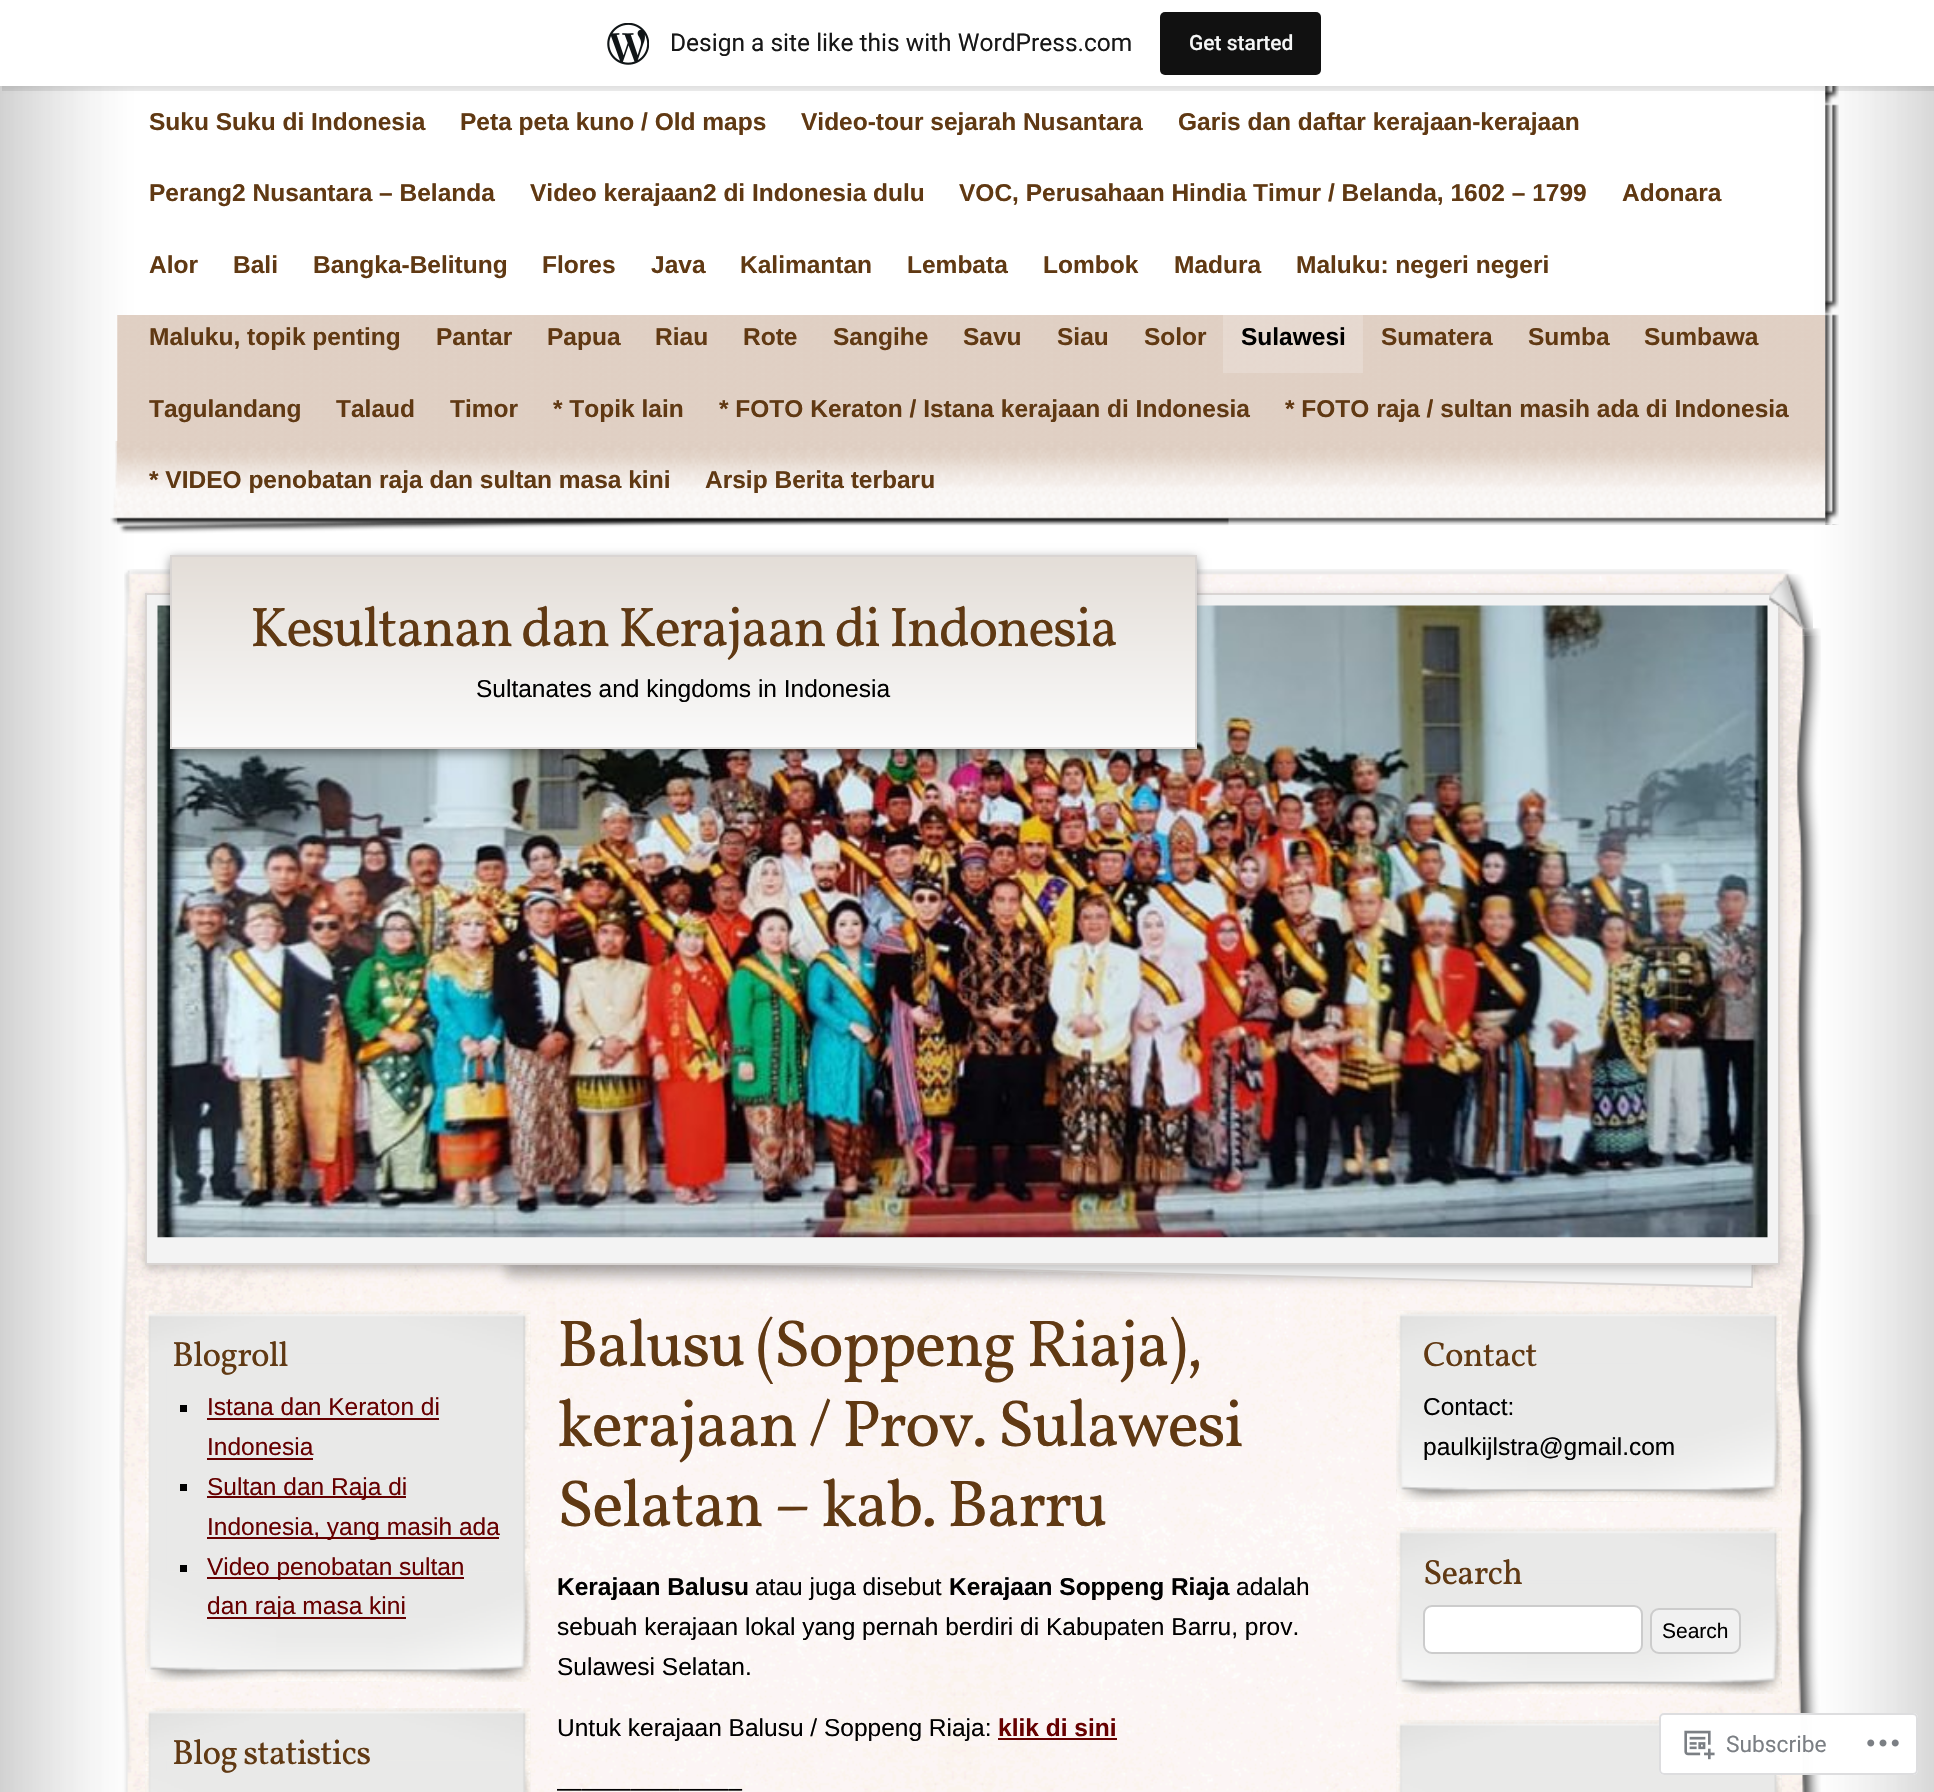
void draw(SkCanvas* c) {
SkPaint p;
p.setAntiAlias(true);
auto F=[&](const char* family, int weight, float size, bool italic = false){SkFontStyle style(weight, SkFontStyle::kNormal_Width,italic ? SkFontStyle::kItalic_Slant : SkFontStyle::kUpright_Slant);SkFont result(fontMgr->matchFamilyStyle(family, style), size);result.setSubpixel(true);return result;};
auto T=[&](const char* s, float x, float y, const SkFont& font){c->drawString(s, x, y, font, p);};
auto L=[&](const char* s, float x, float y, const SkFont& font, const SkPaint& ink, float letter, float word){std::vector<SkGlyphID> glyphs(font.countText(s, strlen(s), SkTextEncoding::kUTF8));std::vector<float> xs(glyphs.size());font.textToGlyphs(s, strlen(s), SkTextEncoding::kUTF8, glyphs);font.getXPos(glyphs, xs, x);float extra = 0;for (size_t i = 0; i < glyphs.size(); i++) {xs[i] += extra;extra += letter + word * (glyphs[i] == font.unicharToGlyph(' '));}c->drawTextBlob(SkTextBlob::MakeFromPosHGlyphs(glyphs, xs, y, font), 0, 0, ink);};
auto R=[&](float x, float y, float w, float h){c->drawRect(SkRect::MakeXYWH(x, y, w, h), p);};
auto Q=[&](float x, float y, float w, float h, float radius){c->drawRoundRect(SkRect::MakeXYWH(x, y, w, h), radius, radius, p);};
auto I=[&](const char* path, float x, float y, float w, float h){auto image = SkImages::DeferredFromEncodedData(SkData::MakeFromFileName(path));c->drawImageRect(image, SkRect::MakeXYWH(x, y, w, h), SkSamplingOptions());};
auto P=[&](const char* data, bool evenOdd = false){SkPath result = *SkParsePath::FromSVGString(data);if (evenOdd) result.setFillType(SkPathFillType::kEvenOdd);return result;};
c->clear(0xffffffff);
I("2.png",0,86,1934,1706);
I("3.png",110,441,1119,93);
I("4.png",117,315,1709,210);
I("5.png",1825,86,14,439);
p.setColor(0x0d000000);
p.setMaskFilter(SkMaskFilter::MakeBlur(kNormal_SkBlurStyle, 2));
c->drawRect(SkRect::MakeXYWH(0,2,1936,86),p);
p.setMaskFilter(nullptr);
p.setColor(0x14000000);
c->drawPath(P("M2 86v5h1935v-86h-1v81z"),p);
p.setColor(0xffffffff);
R(0,0,1934,86);
I("1.png",607,23,42,42);
auto f1 = F("Roboto",400,24.5);
p.setColor(0xff171717);
T("Design a site like this with WordPress.com",670,51,f1);
p.setColor(0xff111111);
Q(1160,12,161,63,5);
auto f2 = F("Roboto",500,21);
p.setColor(0xfff6f7f7);
T("Get started",1189,50,f2);
auto f3 = F("Liberation Sans",700,24.5);
p.setColor(0xff603913);
T("Suku Suku di Indonesia",149,130,f3);
T("Peta peta kuno / Old maps",460,130,f3);
T("Video-tour sejarah Nusantara",801,130,f3);
T("Garis dan daftar kerajaan-kerajaan",1178,130,f3);
T("Perang2 Nusantara – Belanda",149,201,f3);
T("Video kerajaan2 di Indonesia dulu",530,201,f3);
T("VOC, Perusahaan Hindia Timur / Belanda, 1602 – 1799",959,201,f3);
T("Adonara",1622,201,f3);
T("Alor",149,273,f3);
T("Bali",233,273,f3);
T("Bangka-Belitung",313,273,f3);
T("Flores",542,273,f3);
T("Java",651,273,f3);
T("Kalimantan",740,273,f3);
T("Lembata",907,273,f3);
T("Lombok",1043,273,f3);
T("Madura",1174,273,f3);
T("Maluku: negeri negeri",1296,273,f3);
T("Maluku, topik penting",149,345,f3);
T("Pantar",436,345,f3);
T("Papua",547,345,f3);
T("Riau",655,345,f3);
T("Rote",743,345,f3);
T("Sangihe",833,345,f3);
T("Savu",963,345,f3);
T("Siau",1057,345,f3);
T("Solor",1144,345,f3);
p.setColor(0x33ffffff);
R(1223,315,140,58);
p.setColor(0xff000000);
T("Sulawesi",1241,345,f3);
p.setColor(0xff603913);
T("Sumatera",1381,345,f3);
T("Sumba",1528,345,f3);
T("Sumbawa",1644,345,f3);
T("Tagulandang",149,417,f3);
T("Talaud",336,417,f3);
T("Timor",450,417,f3);
T("* Topik lain",553,417,f3);
T("* FOTO Keraton / Istana kerajaan di Indonesia",719,417,f3);
T("* FOTO raja / sultan masih ada di Indonesia",1285,417,f3);
T("* VIDEO penobatan raja dan sultan masa kini",149,488,f3);
T("Arsip Berita terbaru",705,488,f3);
I("9.png",119,635,1702,1157);
I("6.png",124,569,1697,67);
p.setColor(0x33000000);
p.setMaskFilter(SkMaskFilter::MakeBlur(kNormal_SkBlurStyle, 5.5));
c->drawRect(SkRect::MakeXYWH(506,1075,1249,203),p);
p.setMaskFilter(nullptr);
p.setColor(0xfff3f3f3);
c->drawPath(P("M508 1056l1249 29l-4 203l-1249-29z"),p);
p.setStroke(true);
p.setStrokeWidth(1.8);
p.setColor(0xffd9d5d3);
c->drawPath(P("M509 1057.5l1247.5 28l-4.5 201.5l-1247.5-28.5z"),p);
p.setStroke(false);
p.setColor(0x33000000);
p.setMaskFilter(SkMaskFilter::MakeBlur(kNormal_SkBlurStyle, 5));
c->drawRect(SkRect::MakeXYWH(145,597,1635,672),p);
p.setMaskFilter(nullptr);
p.setColor(0xfff3f3f3);
c->drawRect(SkRect::MakeXYWH(146,594,1633,670),p);
p.setStroke(true);
p.setStrokeWidth(2);
p.setColor(0xffd9d5d3);
c->drawRect(SkRect::MakeXYWH(146,594,1633,670),p);
I("7.png",1769,573,44,57);
I("8.png",157,605,1611,633);
p.setStroke(false);
p.setColor(0x66000000);
p.setMaskFilter(SkMaskFilter::MakeBlur(kNormal_SkBlurStyle, 5));
c->drawRect(SkRect::MakeXYWH(170,558,1027,195),p);
p.setMaskFilter(nullptr);
{
const SkColor colors[] = {0xffe3ddd7,0xfffafafa};
const float stops[] = {0,1};
const SkPoint ends[] = {{683,556}, {683,747}};
p.setShader(SkGradientShader::MakeLinear(ends, colors, stops, 2, SkTileMode::kClamp));
p.setAlpha(255);
}
R(172,557,1023,190);
p.setStroke(true);
p.setShader(nullptr);
p.setColor(0xffd9d5d3);
c->drawRect(SkRect::MakeXYWH(171,556,1025,192),p);
auto f4 = F("Vollkorn",400,56);
p.setStroke(false);
p.setColor(0xff603913);
L("Kesultanan dan Kerajaan di Indonesia",250,646,f4,p,-1.75,0);
auto f5 = F("Liberation Sans",400,24.5);
p.setColor(0xff000000);
T("Sultanates and kingdoms in Indonesia",476,697,f5);
p.setColor(0xffe9e9e8);
R(145,1311,385,371);
I("10.png",145,1310,386,372);
auto f6 = F("Vollkorn",400,35);
p.setColor(0xff603913);
L("Blogroll",172,1366,f6,p,-.9,0);
p.setColor(0xff000000);
R(180,1405,7,7);
p.setColor(0xff660000);
T("Istana dan Keraton di",207,1415,f5);
R(207,1418,232,2);
T("Indonesia",207,1455,f5);
R(207,1458,106,2);
p.setColor(0xff000000);
R(180,1484,7,7);
p.setColor(0xff660000);
R(207,1496,199,2);
T("Sultan dan Raja di",207,1495,f5);
R(207,1537,292,2);
T("Indonesia, yang masih ada",207,1535,f5);
p.setColor(0xff000000);
R(180,1565,7,7);
p.setColor(0xff660000);
R(207,1577,257,2);
T("Video penobatan sultan",207,1575,f5);
R(207,1617,199,2);
T("dan raja masa kini",207,1614,f5);
p.setColor(0xffe9e9e8);
R(145,1708,365,84);
I("11.png",145,1708,386,84);
p.setColor(0xff603913);
L("Blog statistics",172,1764,f6,p,-.9,0);
auto f7 = F("Vollkorn",400,66.5);
L("Balusu (Soppeng Riaja),",557,1366,f7,p,-1.75,0);
L("kerajaan / Prov. Sulawesi",557,1446,f7,p,-1.75,0);
L("Selatan – kab. Barru",557,1526,f7,p,-1.75,0);
p.setColor(0xff000000);
T("Kerajaan Balusu",557,1595,f3);
T("atau juga disebut",755,1595,f5);
T("Kerajaan Soppeng Riaja",949,1595,f3);
T("adalah",1236,1595,f5);
T("sebuah kerajaan lokal yang pernah berdiri di Kabupaten Barru, prov.",557,1635,f5);
T("Sulawesi Selatan.",557,1675,f5);
T("Untuk kerajaan Balusu / Soppeng Riaja:",557,1736,f5);
p.setColor(0xff660000);
T("klik di sini",998,1736,f3);
R(998,1738,119,2);
p.setColor(0xff000000);
T("———————–",557,1796,f5);
p.setColor(0xffe9e9e8);
R(1397,1311,385,191);
I("12.png",1396,1310,386,192);
p.setColor(0xff603913);
L("Contact",1423,1366,f6,p,-.9,0);
p.setColor(0xff000000);
T("Contact:",1423,1415,f5);
T("paulkijlstra@gmail.com",1423,1455,f5);
p.setColor(0xffe9e9e8);
R(1417,1528,365,166);
I("13.png",1396,1527,386,167);
p.setColor(0xff603913);
L("Search",1423,1584,f6,p,-.9,0);
p.setColor(0xffffffff);
c->drawRoundRect(SkRect::MakeXYWH(1424,1606,218,47),8,8,p);
p.setStroke(true);
p.setColor(0xffcccccc);
c->drawRoundRect(SkRect::MakeXYWH(1424,1606,218,47),8,8,p);
p.setStroke(false);
p.setColor(0xfff1f1f1);
c->drawRoundRect(SkRect::MakeXYWH(1651,1609,89,44),8,8,p);
p.setStroke(true);
p.setColor(0xffcccccc);
c->drawRoundRect(SkRect::MakeXYWH(1651,1609,89,44),8,8,p);
auto f8 = F("Liberation Sans",400,21);
p.setStroke(false);
p.setColor(0xff000000);
T("Search",1662,1638,f8);
p.setColor(0xffe9e9e8);
R(1397,1720,385,72);
I("14.png",1396,1720,386,72);
p.setColor(0xfaffffff);
Q(1659,1713,259,62,5);
p.setStroke(true);
p.setColor(0xfadcdcde);
c->drawRoundRect(SkRect::MakeXYWH(1660,1714,257,60),4,4,p);
I("15.png",1684,1730,31,30);
auto f9 = F("Roboto",400,22.75);
p.setStroke(false);
p.setColor(0xff7b7f84);
T("Subscribe",1726,1752,f9);
I("16.png",1867,1739,32,8);
}
